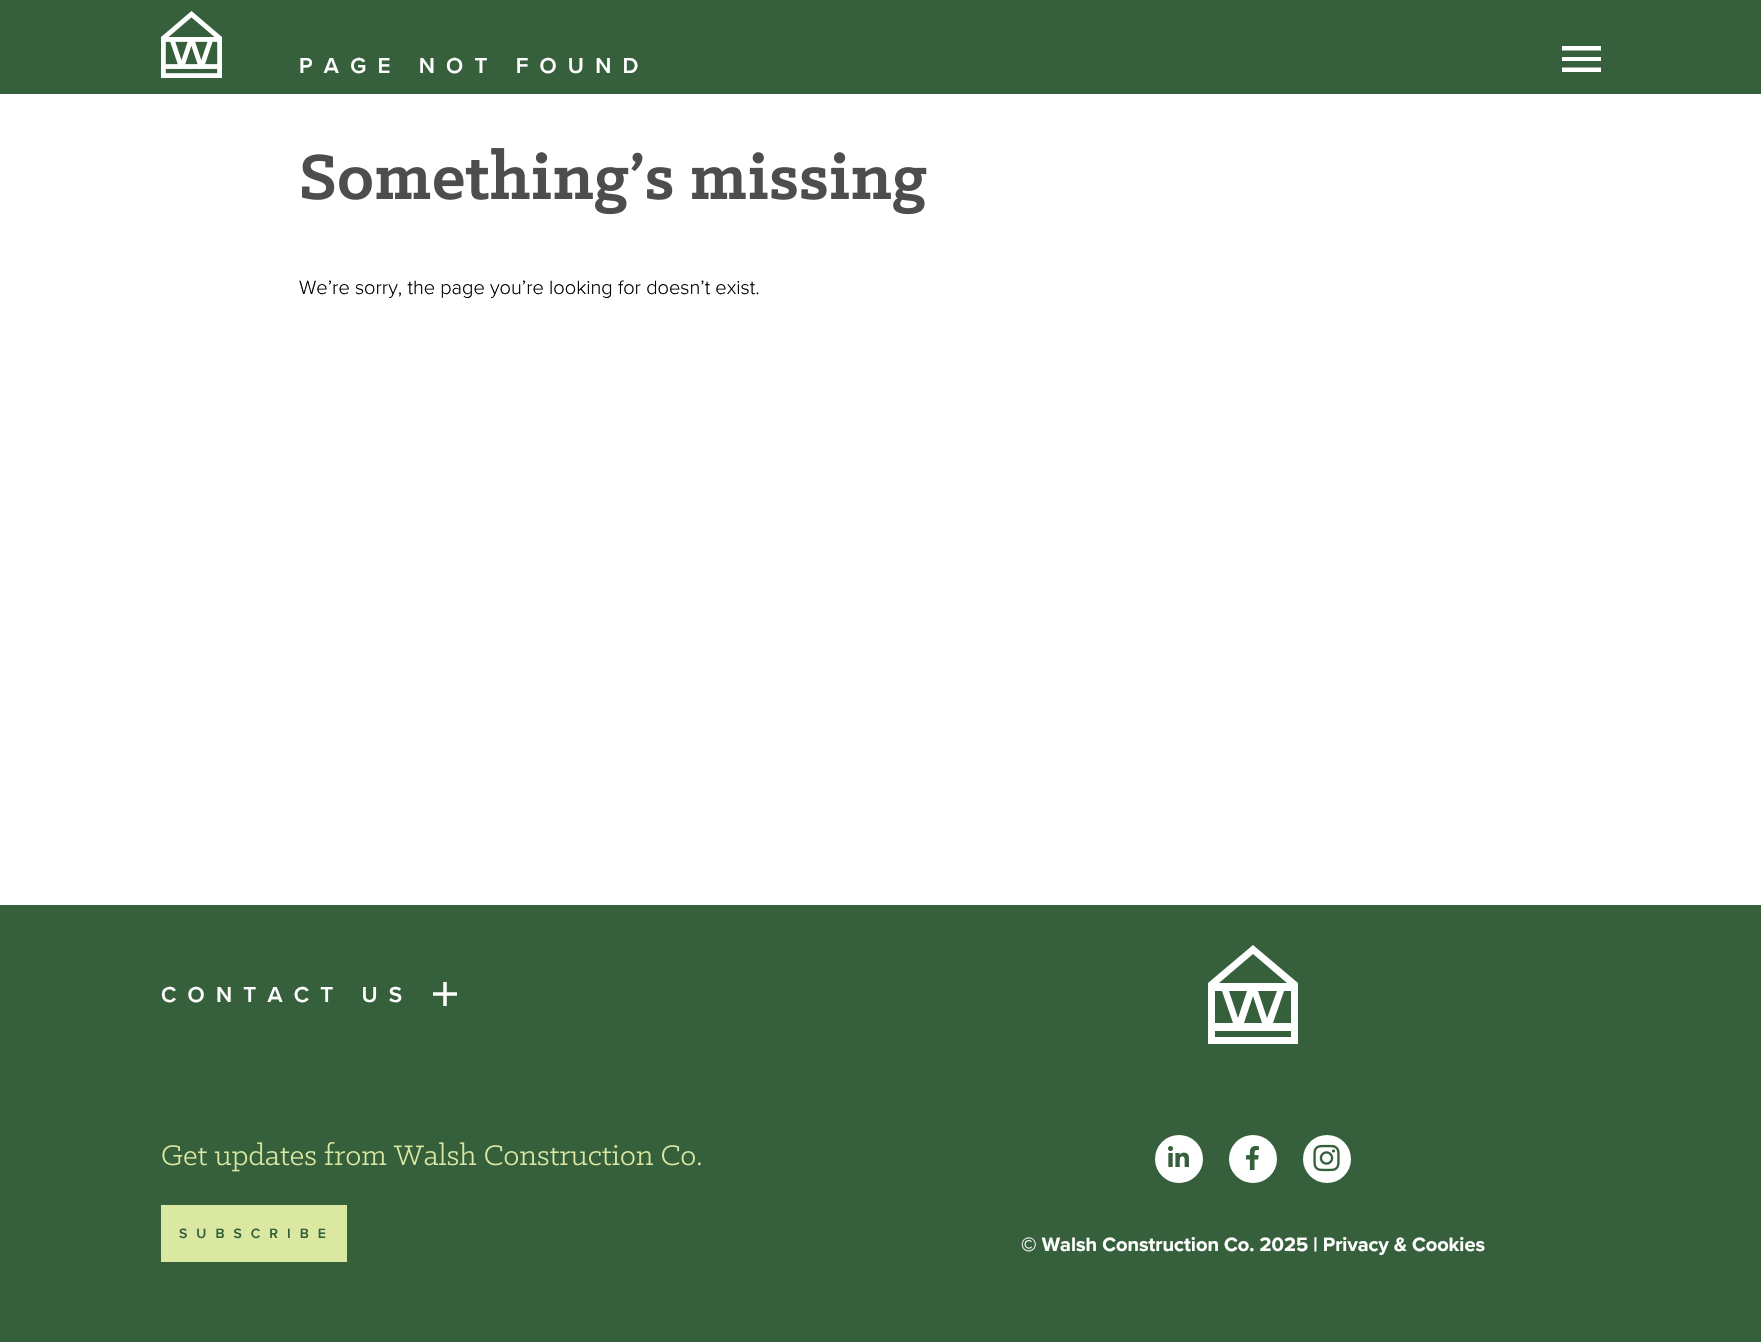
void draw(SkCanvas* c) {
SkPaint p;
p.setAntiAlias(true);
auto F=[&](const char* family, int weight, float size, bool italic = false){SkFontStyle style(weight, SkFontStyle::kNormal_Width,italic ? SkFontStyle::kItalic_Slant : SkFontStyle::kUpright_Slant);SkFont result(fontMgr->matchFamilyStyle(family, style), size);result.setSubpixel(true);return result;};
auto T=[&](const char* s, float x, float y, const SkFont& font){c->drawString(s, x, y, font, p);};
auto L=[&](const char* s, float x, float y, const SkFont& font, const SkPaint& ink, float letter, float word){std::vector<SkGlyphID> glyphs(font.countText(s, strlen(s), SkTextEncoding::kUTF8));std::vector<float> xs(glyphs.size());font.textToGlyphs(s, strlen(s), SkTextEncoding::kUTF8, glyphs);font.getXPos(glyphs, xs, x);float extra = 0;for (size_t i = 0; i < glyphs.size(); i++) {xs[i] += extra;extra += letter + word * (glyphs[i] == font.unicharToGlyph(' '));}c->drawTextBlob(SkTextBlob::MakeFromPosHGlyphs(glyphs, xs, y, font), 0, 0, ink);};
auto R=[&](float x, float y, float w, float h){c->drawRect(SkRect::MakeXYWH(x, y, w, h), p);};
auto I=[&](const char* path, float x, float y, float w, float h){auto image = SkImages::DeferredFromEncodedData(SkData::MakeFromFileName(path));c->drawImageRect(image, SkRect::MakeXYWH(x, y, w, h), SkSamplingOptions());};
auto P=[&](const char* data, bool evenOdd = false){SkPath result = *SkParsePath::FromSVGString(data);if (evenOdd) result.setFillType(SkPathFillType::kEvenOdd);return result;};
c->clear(0xffffffff);
p.setColor(0xff365f3c);
R(0,0,1761,94);
I("1.png",161,11,61,67);
p.setColor(0xffffffff);
c->drawPath(P("M1562 72h39v-4.5h-39zm0-11h39v-4h-39zm0-15v4.5h39v-4.5z",true),p);
auto f1 = F("Proxima Nova",600,22.4);
L("PAGE NOT FOUND",299,73,f1,p,11.25,0);
I("2.png",302,148,625,67);
auto f2 = F("Proxima Nova",300,20);
p.setColor(0xff000000);
T("We’re sorry, the page you’re looking for doesn’t exist.",299,294,f2);
p.setColor(0xff365f3c);
R(0,905,1761,437);
p.setColor(0xffffffff);
L("CONTACT US",161,1002,f1,p,11.25,0);
I("3.png",433,982,24,24);
c->drawPath(P("M1291 1037h-76v-6h76zm-76-14v-32h7l11 32zm14-32h18l-9 27zm15 32l9-27l9 27zm14-32h19l-10 27zm33 0v32h-18l11-32zm-72-8l34-29l34 29zm34-38l-45 38v61h90v-61z"),p);
I("4.png",162,1142,539,30);
p.setColor(0xffdae8a2);
R(161,1205,186,57);
auto f3 = F("Proxima Nova",600,14);
p.setColor(0xff365f3c);
L("SUBSCRIBE",179,1238,f3,p,9,0);
p.setColor(0xffffffff);
c->drawCircle(1179,1159,24,p);
I("5.png",1168,1146,21,21);
c->drawCircle(1253,1159,24,p);
I("6.png",1246,1146,13,24);
c->drawCircle(1327,1159,24,p);
I("7.png",1313,1144,27,28);
auto f4 = F("Proxima Nova",700,20);
T("© Walsh Construction Co. 2025 | Privacy & Cookies",1021,1251,f4);
}
